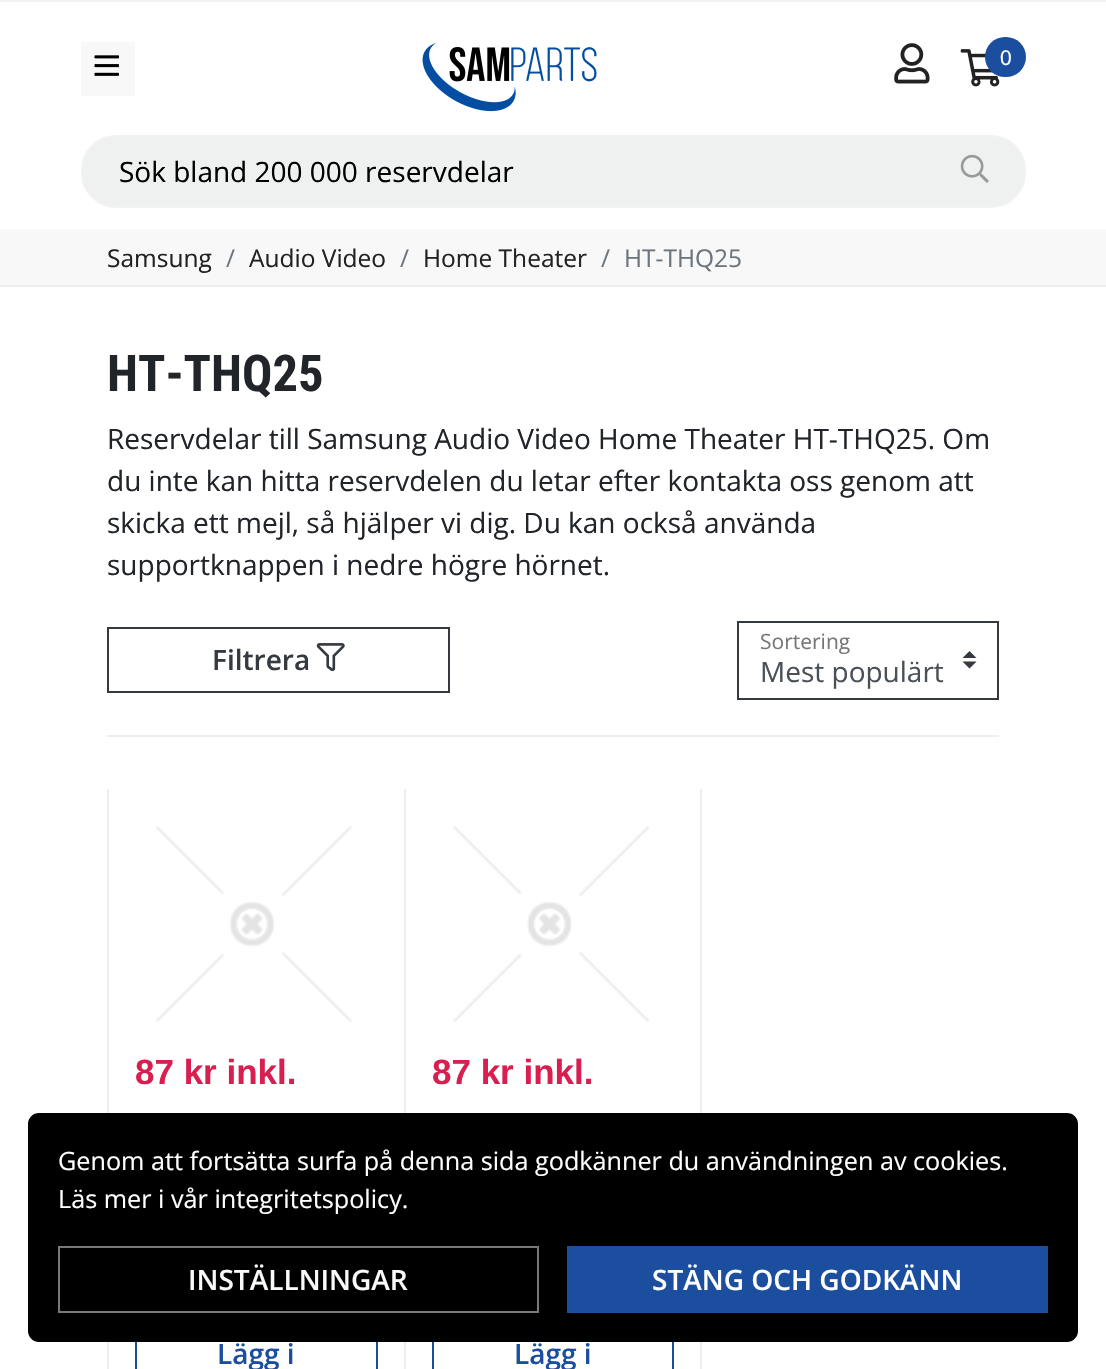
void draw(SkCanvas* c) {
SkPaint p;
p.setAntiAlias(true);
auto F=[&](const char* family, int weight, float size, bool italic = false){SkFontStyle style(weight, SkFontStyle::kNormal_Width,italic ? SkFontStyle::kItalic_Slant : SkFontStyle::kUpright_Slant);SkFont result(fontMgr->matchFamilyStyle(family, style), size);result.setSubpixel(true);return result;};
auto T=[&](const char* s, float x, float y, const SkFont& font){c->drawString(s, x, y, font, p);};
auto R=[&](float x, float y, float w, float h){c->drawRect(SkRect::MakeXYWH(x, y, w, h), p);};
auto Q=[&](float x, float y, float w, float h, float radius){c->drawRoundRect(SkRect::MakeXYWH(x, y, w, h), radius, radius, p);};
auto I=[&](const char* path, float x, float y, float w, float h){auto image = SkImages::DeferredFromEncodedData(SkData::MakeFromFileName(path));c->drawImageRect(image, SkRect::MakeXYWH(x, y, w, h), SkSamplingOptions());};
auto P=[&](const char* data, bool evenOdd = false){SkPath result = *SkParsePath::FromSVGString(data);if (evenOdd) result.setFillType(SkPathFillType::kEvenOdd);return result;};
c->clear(0xffffffff);
p.setColor(0xffeff0f0);
R(0,0,1106,2);
p.setColor(0xfff8f8f8);
R(81,42,54,54);
I("1.png",94,55,25,21);
I("2.png",422,43,175,69);
I("3.png",894,43,36,41);
I("4.png",960,49,40,38);
p.setColor(0xff1b4e9e);
Q(985,37,41,40,20);
auto f1 = F("Liberation Sans",400,21);
p.setColor(0xffffffff);
T("0",1000,65,f1);
p.setColor(0xffeff0f0);
c->drawRoundRect(SkRect::MakeXYWH(82,136,943,71),34,34,p);
p.setStroke(true);
p.setStrokeWidth(2);
p.setColor(0xfff2f2f2);
c->drawRoundRect(SkRect::MakeXYWH(82,136,943,71),34,34,p);
auto f2 = F("Open Sans",400,28);
p.setStroke(false);
p.setColor(0xff000000);
T("Sök bland 200 000 reservdelar",119,182,f2);
I("5.png",960,154,29,29);
p.setColor(0xfff8f8f8);
R(0,229,1106,56);
p.setColor(0xffeeeeee);
R(0,285,1106,2);
auto f3 = F("Open Sans",400,24.5);
p.setColor(0xff222222);
T("Samsung",107,267,f3);
p.setColor(0xff6c757d);
T("/",226,267,f3);
p.setColor(0xff222222);
T("Audio Video",249,267,f3);
p.setColor(0xff6c757d);
T("/",400,267,f3);
p.setColor(0xff222222);
T("Home Theater",423,267,f3);
p.setColor(0xff6c757d);
T("/",601,267,f3);
T("HT-THQ25",624,267,f3);
auto f4 = F("Roboto Condensed",700,50.5);
p.setColor(0xff212529);
T("HT-THQ25",107,391,f4);
T("Reservdelar till Samsung Audio Video Home Theater HT-THQ25. Om",107,449,f2);
T("du inte kan hitta reservdelen du letar efter kontakta oss genom att",107,491,f2);
T("skicka ett mejl, så hjälper vi dig. Du kan också använda",107,533,f2);
T("supportknappen i nedre högre hörnet.",107,575,f2);
p.setColor(0xffeeeeee);
R(107,735,892,2);
p.setStroke(true);
p.setColor(0xff343a40);
c->drawRect(SkRect::MakeXYWH(108,628,341,64),p);
auto f5 = F("Open Sans",600,28);
p.setStroke(false);
T("Filtrera",212,670,f5);
I("6.png",316,643,29,29);
c->drawPath(P("M969.5 651l-7 7h14zm0 17.5l-7-7h14z"),p);
p.setStroke(true);
c->drawRect(SkRect::MakeXYWH(738,622,260,77),p);
auto f6 = F("Open Sans",400,21);
p.setStroke(false);
p.setColor(0xff777777);
T("Sortering",760,649,f6);
p.setColor(0xff495057);
T("Mest populärt",760,682,f2);
p.setColor(0xffeeeeee);
R(107,789,2,580);
R(404,789,2,580);
I("7.png",156,826,196,196);
auto f7 = F("Liberation Sans",700,35);
p.setColor(0xffd91f50);
T("87 kr inkl.",135,1084,f7);
p.setStroke(true);
p.setColor(0xff1b4e9e);
c->drawRect(SkRect::MakeXYWH(136,1321,241,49),p);
p.setStroke(false);
T("Lägg i",217,1364,f5);
p.setColor(0xffeeeeee);
R(700,789,2,580);
I("8.png",453,826,197,196);
p.setColor(0xffd91f50);
T("87 kr inkl.",432,1084,f7);
p.setStroke(true);
p.setColor(0xff1b4e9e);
c->drawRect(SkRect::MakeXYWH(433,1321,240,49),p);
p.setStroke(false);
T("Lägg i",514,1364,f5);
p.setColor(0xff000000);
c->drawRoundRect(SkRect::MakeXYWH(29,1114,1048,227),10,10,p);
p.setStroke(true);
c->drawRoundRect(SkRect::MakeXYWH(29,1114,1048,227),10,10,p);
auto f8 = F("Open Sans",400,25.2);
p.setStroke(false);
p.setColor(0xffffffff);
T("Genom att fortsätta surfa på denna sida godkänner du användningen av cookies.",58,1170,f8);
T("Läs mer i vår integritetspolicy.",58,1208,f8);
p.setStroke(true);
p.setColor(0xff787878);
c->drawRect(SkRect::MakeXYWH(59,1247,479,65),p);
p.setStroke(false);
p.setColor(0xfff8f9fa);
T("INSTÄLLNINGAR",188,1290,f5);
p.setColor(0xff1b4e9e);
R(567,1246,481,67);
p.setColor(0xffffffff);
T("STÄNG OCH GODKÄNN",652,1290,f5);
}
